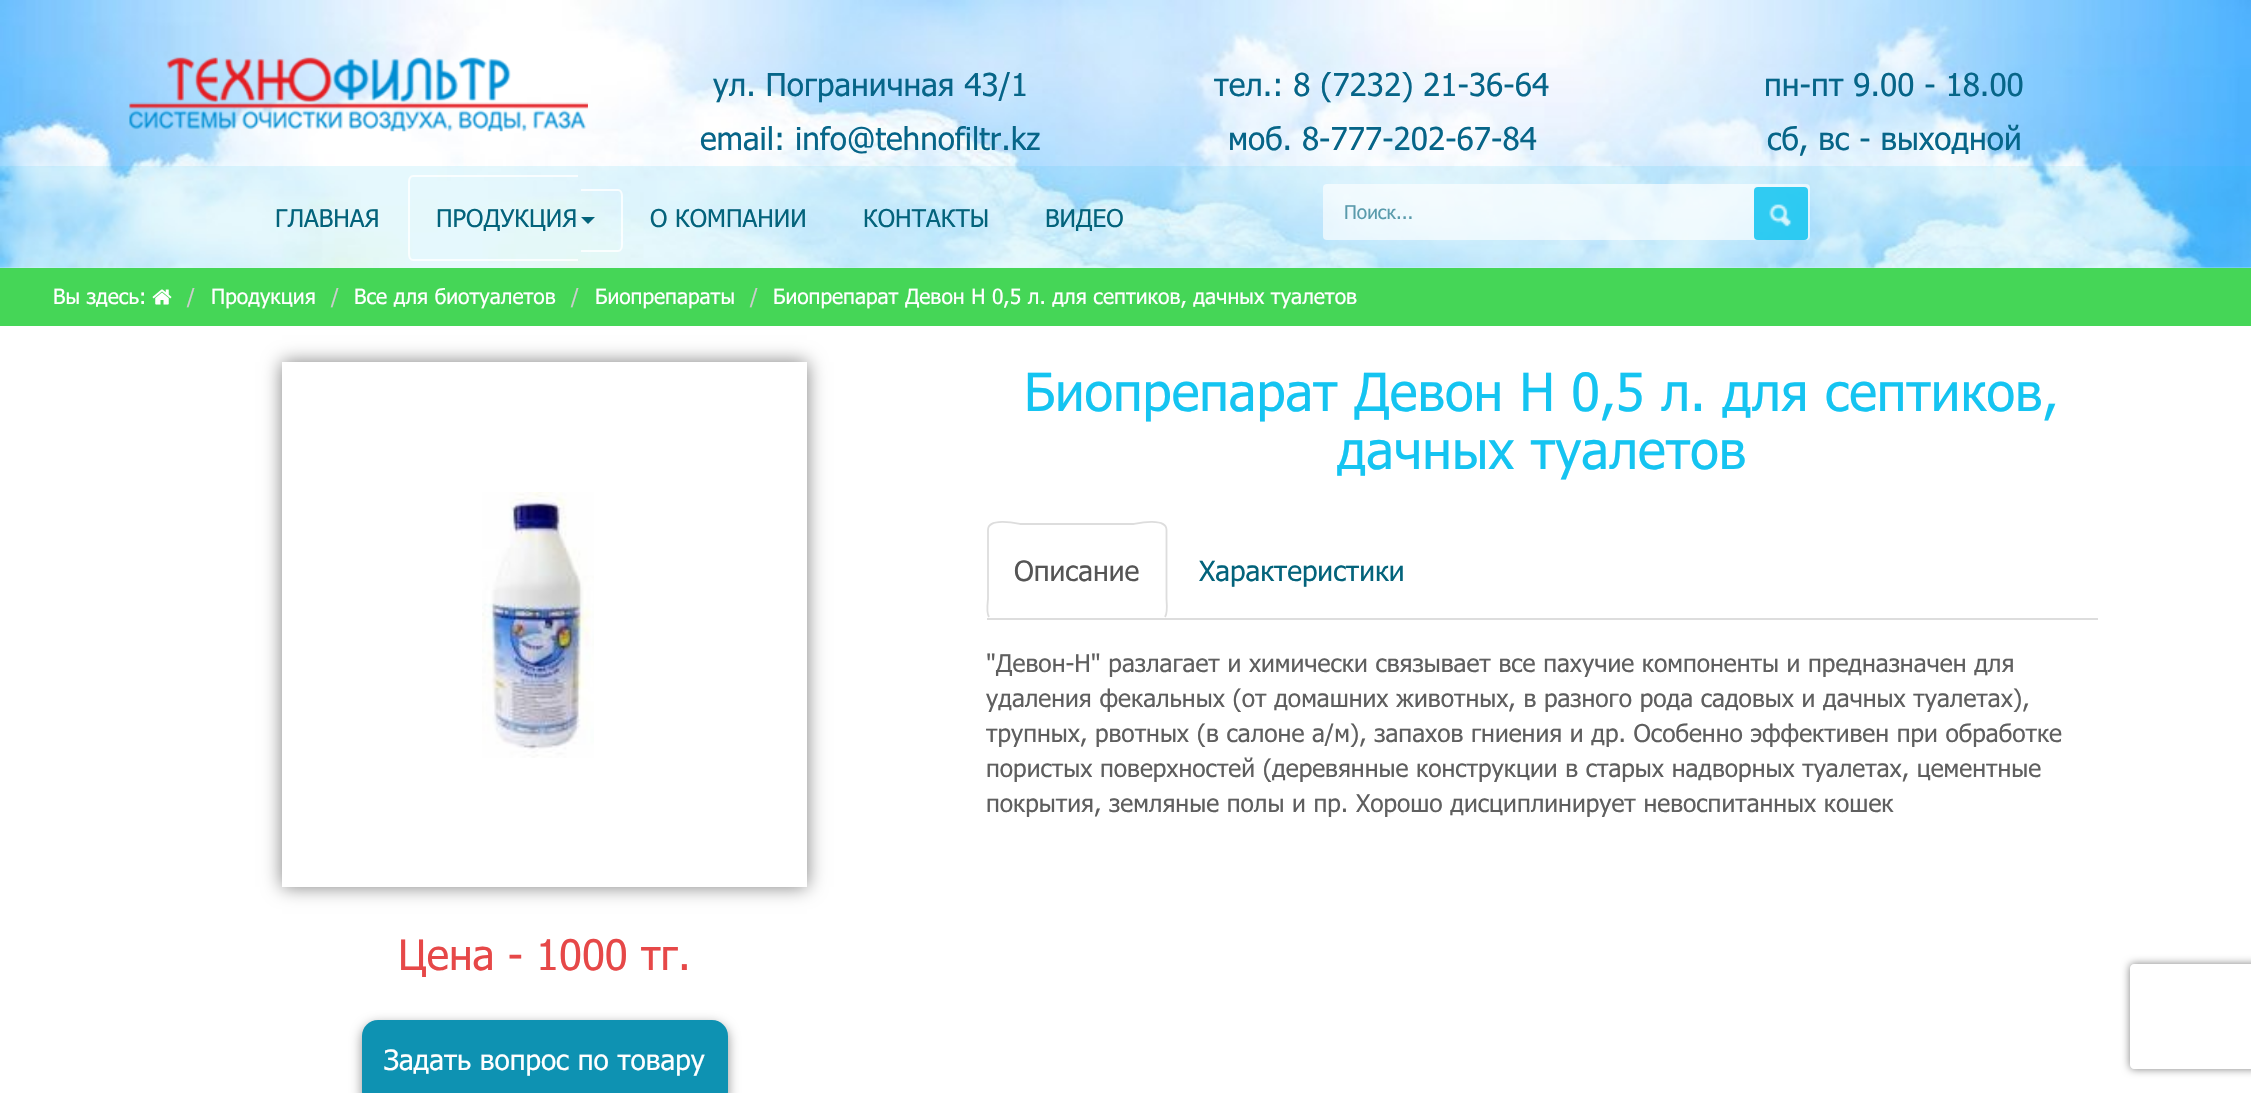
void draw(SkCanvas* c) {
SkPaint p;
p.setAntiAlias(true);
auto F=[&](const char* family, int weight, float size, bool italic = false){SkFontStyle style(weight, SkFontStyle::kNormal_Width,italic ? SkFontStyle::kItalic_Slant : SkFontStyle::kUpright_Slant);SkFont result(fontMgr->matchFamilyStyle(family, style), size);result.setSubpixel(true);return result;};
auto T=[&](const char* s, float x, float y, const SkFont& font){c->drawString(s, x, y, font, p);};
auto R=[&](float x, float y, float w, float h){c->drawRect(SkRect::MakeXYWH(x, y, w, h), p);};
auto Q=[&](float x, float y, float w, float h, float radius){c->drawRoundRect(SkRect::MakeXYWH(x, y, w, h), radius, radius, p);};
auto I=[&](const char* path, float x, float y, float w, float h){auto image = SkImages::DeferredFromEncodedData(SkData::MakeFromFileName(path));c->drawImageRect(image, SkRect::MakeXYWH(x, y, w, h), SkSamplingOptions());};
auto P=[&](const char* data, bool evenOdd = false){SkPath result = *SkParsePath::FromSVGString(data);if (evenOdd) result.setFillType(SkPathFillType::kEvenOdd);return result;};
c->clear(0xffffffff);
I("1.png",0,0,2251,268);
I("2.png",129,57,459,75);
auto f1 = F("Tahoma",400,31.5);
p.setColor(0xff066588);
T("ул. Пограничная 43/1",713,96,f1);
T("email: info@tehnofiltr.kz",700,150,f1);
T("тел.: 8 (7232) 21-36-64",1214,96,f1);
T("моб. 8-777-202-67-84",1228,150,f1);
T("пн-пт 9.00 - 18.00",1764,96,f1);
T("сб, вс - выходной",1767,150,f1);
p.setColor(0x1a00bfef);
R(0,166,2251,102);
auto f2 = F("Tahoma",400,24.5);
p.setColor(0xff03637b);
T("ГЛАВНАЯ",275,227,f2);
p.setColor(0xc9ffffff);
c->drawPath(P("M413 175h165v86h-165c-3 0-5-3-5-7v-72c0-4 2-7 5-7zm0 2h165v82h-165c-2 0-3-2-3-5v-72c0-3 1-5 3-5z",true),p);
c->drawPath(P("M581 189h37c3 0 5 3 5 7v49c0 4-2 7-5 7h-37zm0 2h37c2 0 3 2 3 5v49c0 3-1 5-3 5h-37z",true),p);
p.setColor(0xff03637b);
T("ПРОДУКЦИЯ",436,227,f2);
c->drawPath(P("M581 217h14l-7 7z"),p);
T("О КОМПАНИИ",650,227,f2);
T("КОНТАКТЫ",863,227,f2);
T("ВИДЕО",1045,227,f2);
p.setColor(0xa1ffffff);
Q(1323,184,487,56,4);
auto f3 = F("Tahoma",400,19);
p.setColor(0xff5a9bac);
T("Поиск...",1344,219,f3);
p.setColor(0xcc00bfef);
Q(1754,187,54,53,4);
I("3.png",1769,204,23,23);
p.setColor(0xff45d657);
R(0,268,2251,58);
auto f4 = F("Tahoma",400,21);
p.setColor(0xffffffff);
T("Вы здесь:",53,304,f4);
I("4.png",152,289,20,16);
p.setColor(0xffcccccc);
T("/",187,304,f4);
p.setColor(0xffffffff);
T("Продукция",211,304,f4);
p.setColor(0xffcccccc);
T("/",331,304,f4);
p.setColor(0xffffffff);
T("Все для биотуалетов",354,304,f4);
p.setColor(0xffcccccc);
T("/",571,304,f4);
p.setColor(0xffffffff);
T("Биопрепараты",595,304,f4);
p.setColor(0xffcccccc);
T("/",750,304,f4);
p.setColor(0xffffffff);
T("Биопрепарат Девон Н 0,5 л. для септиков, дачных туалетов",773,304,f4);
auto f5 = F("Tahoma",400,52.5);
p.setColor(0xff15c4f1);
T("Биопрепарат Девон Н 0,5 л. для септиков,",1024,411,f5);
T("дачных туалетов",1337,469,f5);
p.setColor(0xffdddddd);
R(987,618,1111,2);
p.setStroke(true);
p.setStrokeWidth(1.8);
c->drawPath(P("M989 617c-3-4.5-1-17-1-18v-69c0-13.5 32-6 32.5-6h113c.5 0 33-7.5 33 6v69c0 1 1.5 13.5-1.5 18"),p);
auto f6 = F("Tahoma",400,28);
p.setStroke(false);
p.setColor(0xff555555);
T("Описание",1014,581,f6);
p.setColor(0xff03637b);
T("Характеристики",1199,581,f6);
p.setColor(0xff5f5f5f);
T("\"Девон-Н\" разлагает и химически связывает все пахучие компоненты и предназначен для",986,672,f2);
T("удаления фекальных (от домашних животных, в разного рода садовых и дачных туалетах),",986,707,f2);
T("трупных, рвотных (в салоне а/м), запахов гниения и др. Особенно эффективен при обработке",986,742,f2);
T("пористых поверхностей (деревянные конструкции в старых надворных туалетах, цементные",986,777,f2);
T("покрытия, земляные полы и пр. Хорошо дисциплинирует невоспитанных кошек",986,812,f2);
c->save();
c->clipPath(P("M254 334h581v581h-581zm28 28h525v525h-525z",true),true);
p.setColor(0x80000000);
p.setMaskFilter(SkMaskFilter::MakeBlur(kNormal_SkBlurStyle, 9));
c->drawRect(SkRect::MakeXYWH(282,362,525,525),p);
p.setMaskFilter(nullptr);
c->restore();
I("5.png",482,492,112,266);
auto f7 = F("Tahoma",400,42);
p.setColor(0xffe64848);
T("Цена - 1000 тг.",398,970,f7);
p.setColor(0x6e000000);
p.setMaskFilter(SkMaskFilter::MakeBlur(kNormal_SkBlurStyle, 6));
c->drawRoundRect(SkRect::MakeXYWH(362,1024,366,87),16,16,p);
p.setMaskFilter(nullptr);
p.setColor(0xff0e92b2);
c->drawPath(P("M378 1020h334c9 0 16 7 16 16v56c0 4-7 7-16 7h-334c-9 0-16-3-16-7v-56c0-9 7-16 16-16z"),p);
p.setColor(0xffffffff);
T("Задать вопрос по товару",384,1070,f6);
c->save();
c->clipPath(P("M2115 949h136v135h-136zm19 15h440c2 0 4 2 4 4v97c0 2-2 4-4 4h-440c-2 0-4-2-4-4v-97c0-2 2-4 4-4z",true),true);
p.setColor(0xff808080);
p.setMaskFilter(SkMaskFilter::MakeBlur(kNormal_SkBlurStyle, 4.5));
c->drawRoundRect(SkRect::MakeXYWH(2130,964,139,105),4,4,p);
p.setMaskFilter(nullptr);
c->restore();
}
